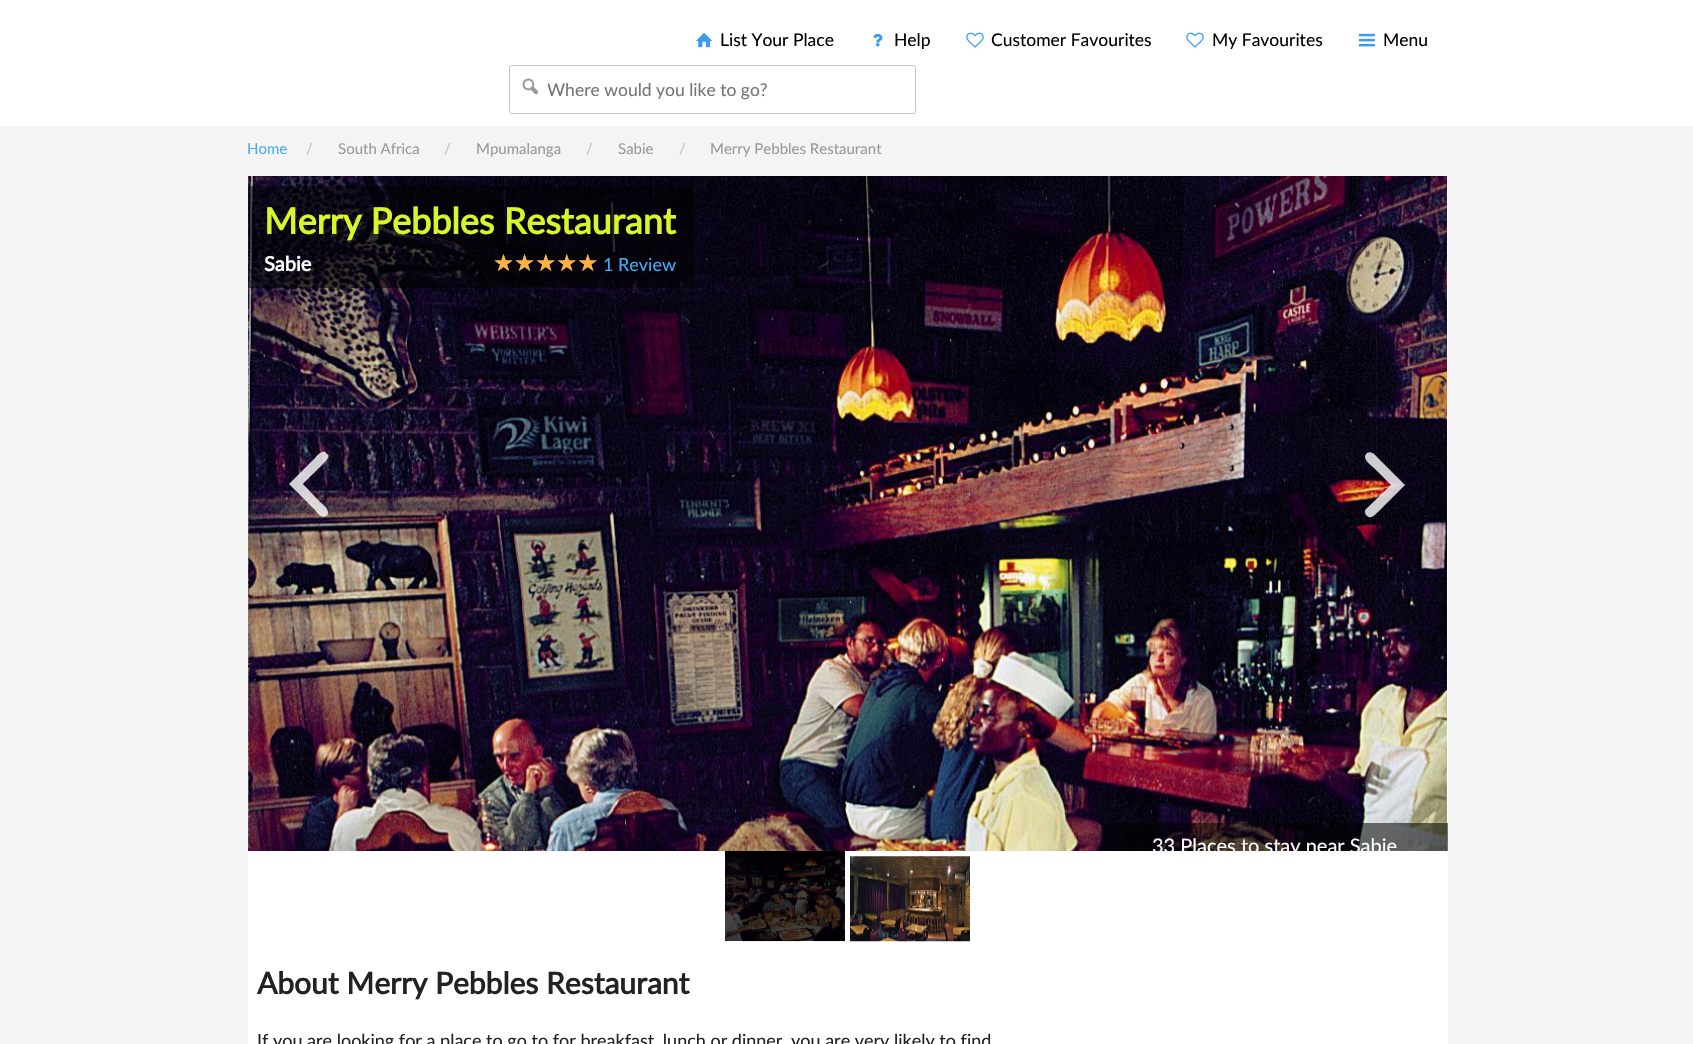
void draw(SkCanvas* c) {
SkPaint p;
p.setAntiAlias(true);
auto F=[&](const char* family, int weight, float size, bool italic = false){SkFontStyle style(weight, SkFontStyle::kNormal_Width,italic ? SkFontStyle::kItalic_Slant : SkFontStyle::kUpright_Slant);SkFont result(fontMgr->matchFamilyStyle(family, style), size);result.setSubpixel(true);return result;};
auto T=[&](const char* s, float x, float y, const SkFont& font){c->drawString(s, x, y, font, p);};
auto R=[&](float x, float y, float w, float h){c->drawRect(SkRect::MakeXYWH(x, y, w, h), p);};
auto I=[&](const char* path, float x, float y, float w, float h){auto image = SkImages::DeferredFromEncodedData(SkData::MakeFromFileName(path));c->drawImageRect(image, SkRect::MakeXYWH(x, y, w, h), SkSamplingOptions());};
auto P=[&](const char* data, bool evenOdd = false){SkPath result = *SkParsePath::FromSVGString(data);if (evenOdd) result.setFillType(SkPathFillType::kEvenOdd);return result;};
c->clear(0xfff4f4f4);
p.setColor(0xffffffff);
R(0,0,1693,126);
I("1.png",696,33,16,15);
auto f1 = F("Lato",400,17.5);
p.setColor(0xff000000);
T("List Your Place",720,46,f1);
I("2.png",873,33,10,14);
T("Help",894,46,f1);
I("3.png",966,32,18,16);
T("Customer Favourites",991,46,f1);
I("3.png",1186,32,18,16);
T("My Favourites",1212,46,f1);
I("4.png",1358,33,18,14);
T("Menu",1383,46,f1);
p.setStroke(true);
p.setStrokeWidth(1);
p.setColor(0xffc4c4c4);
c->drawRoundRect(SkRect::MakeXYWH(509.5,65.5,406,48),2,2,p);
I("5.png",522,78,17,17);
c->save();
c->clipRect(SkRect::MakeXYWH(548,79,355,21));
p.setStroke(false);
p.setColor(0xff757575);
T("Where would you like to go?",547,96,f1);
c->restore();
auto f2 = F("Lato",400,15);
p.setColor(0xff4aacf2);
T("Home",247,154,f2);
p.setColor(0xffbfbfbf);
T("/",306,154,f2);
p.setColor(0xff999999);
T("South Africa",338,154,f2);
p.setColor(0xffbfbfbf);
T("/",444,154,f2);
p.setColor(0xff999999);
T("Mpumalanga",476,154,f2);
p.setColor(0xffbfbfbf);
T("/",586,154,f2);
p.setColor(0xff999999);
T("Sabie",618,154,f2);
p.setColor(0xffbfbfbf);
T("/",679,154,f2);
p.setColor(0xff999999);
T("Merry Pebbles Restaurant",710,154,f2);
p.setColor(0xffffffff);
R(1447,176,1,675);
I("6.png",248,176,1199,675);
R(248,851,1200,193);
p.setColor(0xff000000);
R(725,851,120,90);
I("7.png",725,856,120,86);
I("8.png",850,856,120,86);
p.setColor(0xccffffff);
c->drawPath(P("M289 484l26-26c2-2 7-9 11-5c2 1 3 3 2 4c0 4-22 23-25 27l16 17c2 2 9 7 9 11c0 2 0 3-2 4c-4 3-9-3-11-6z"),p);
c->drawPath(P("M1365 512c0-1 0-2 1-3l25-24l-16-16c-3-3-10-8-10-12c0-2 1-3 2-4c5-3 9 3 12 6l26 26l-26 26c-3 2-7 9-12 5c-1-1-2-2-2-4z"),p);
p.setColor(0x8c000000);
R(248,186,446,102);
auto f3 = F("Lato",700,36);
p.setColor(0xffd9f628);
T("Merry Pebbles Restaurant",264,234,f3);
auto f4 = F("Lato",700,20);
p.setColor(0xffffffff);
T("Sabie",264,271,f4);
auto f5 = F("DejaVu Sans",400,23.5);
p.setColor(0xff898989);
T("★★★★★",493,271,f5);
p.setColor(0xffffb242);
T("★★★★★",493,271,f5);
auto f6 = F("Lato",400,18);
p.setColor(0xff43abef);
T("1 Review",603,271,f6);
p.setColor(0x8c000000);
R(1101,823,347,28);
auto f7 = F("Lato",400,20);
p.setColor(0xffffffff);
T("33 Places to stay near Sabie",1152,853,f7);
auto f8 = F("Lato",700,30);
p.setColor(0xff222222);
T("About Merry Pebbles Restaurant",257,994,f8);
T("If you are looking for a place to go to for breakfast, lunch or dinner",257,1047,f6);
T("you are very likely to find",791,1047,f6);
}
